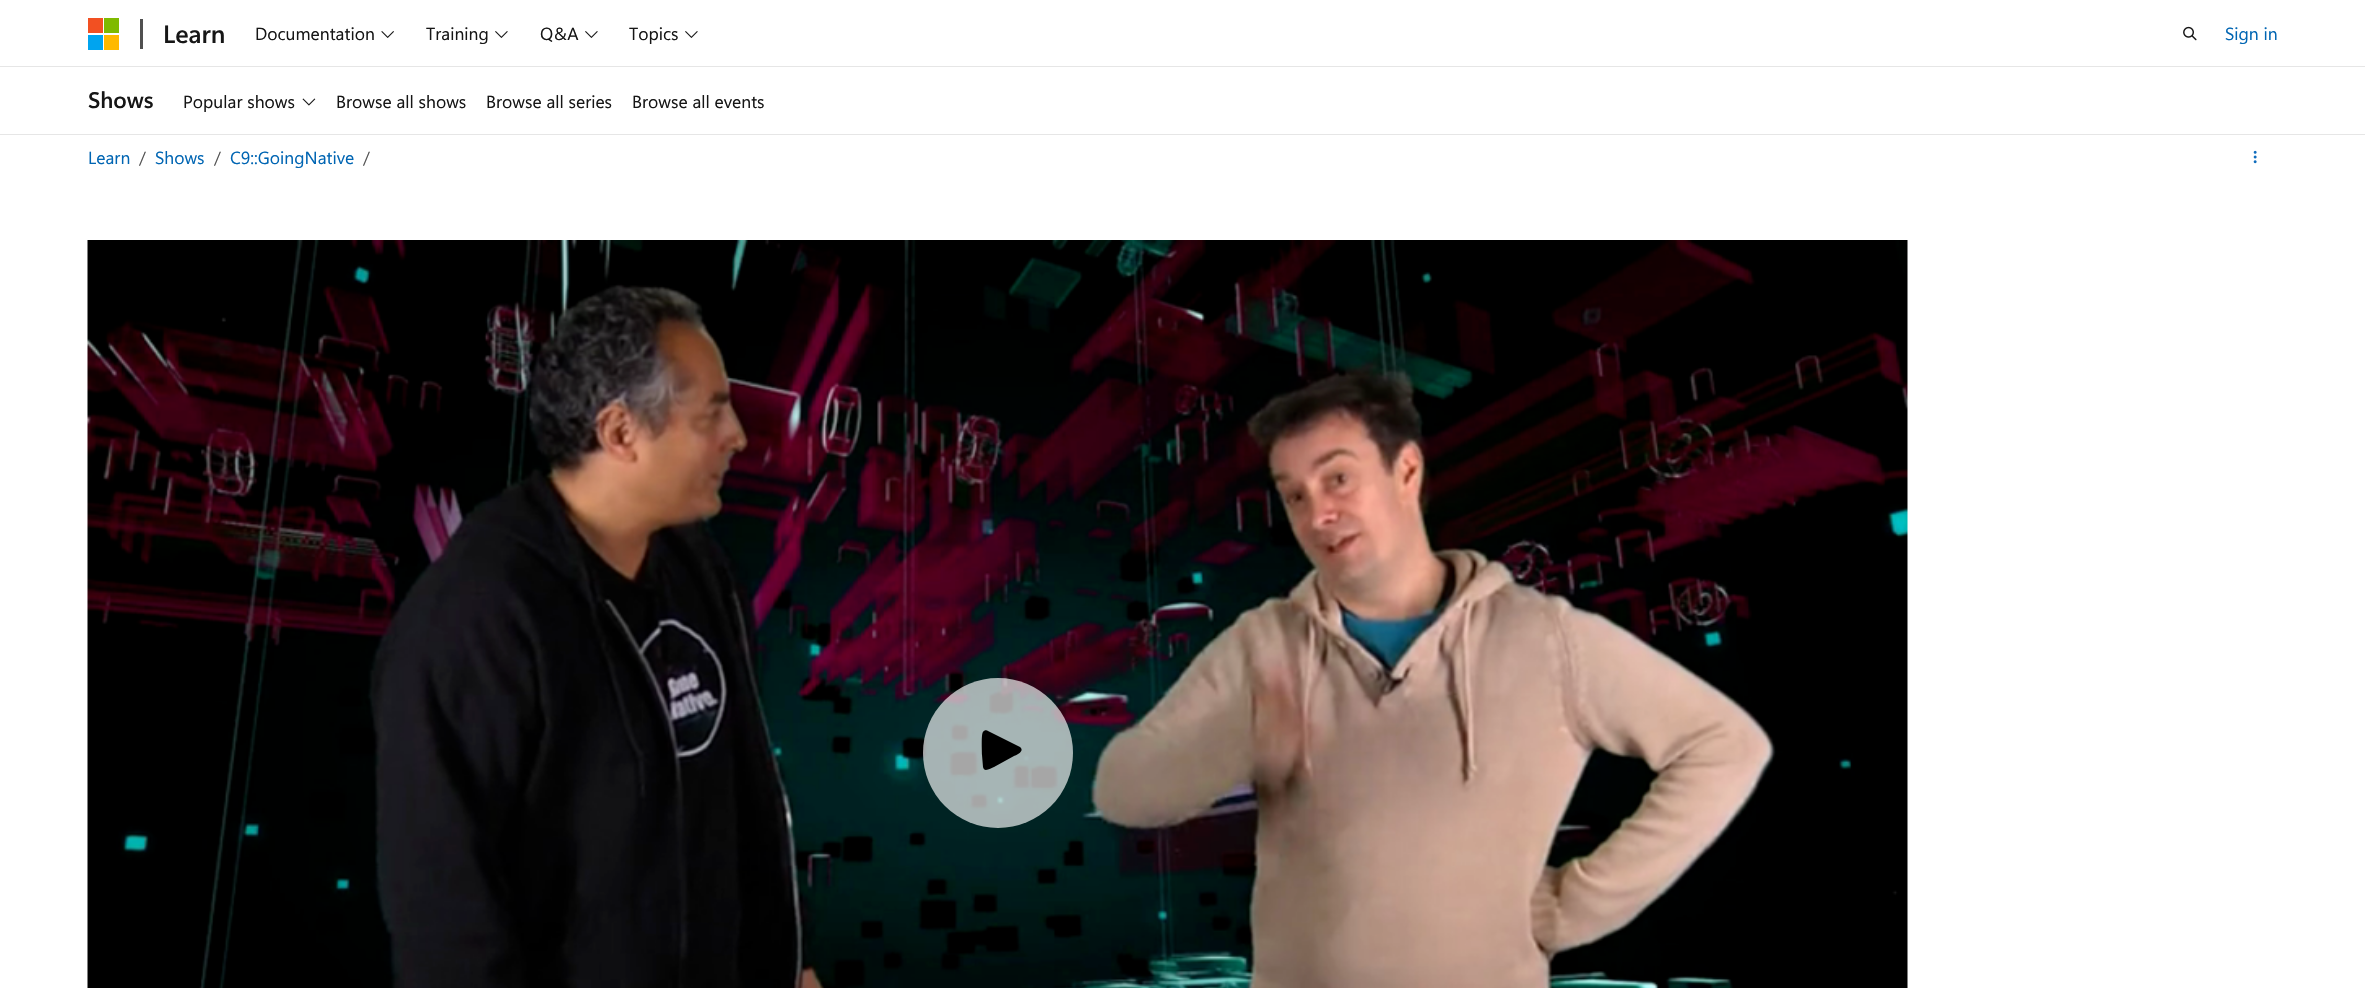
void draw(SkCanvas* c) {
SkPaint p;
p.setAntiAlias(true);
auto F=[&](const char* family, int weight, float size, bool italic = false){SkFontStyle style(weight, SkFontStyle::kNormal_Width,italic ? SkFontStyle::kItalic_Slant : SkFontStyle::kUpright_Slant);SkFont result(fontMgr->matchFamilyStyle(family, style), size);result.setSubpixel(true);return result;};
auto T=[&](const char* s, float x, float y, const SkFont& font){c->drawString(s, x, y, font, p);};
auto R=[&](float x, float y, float w, float h){c->drawRect(SkRect::MakeXYWH(x, y, w, h), p);};
auto I=[&](const char* path, float x, float y, float w, float h){auto image = SkImages::DeferredFromEncodedData(SkData::MakeFromFileName(path));c->drawImageRect(image, SkRect::MakeXYWH(x, y, w, h), SkSamplingOptions());};
auto P=[&](const char* data, bool evenOdd = false){SkPath result = *SkParsePath::FromSVGString(data);if (evenOdd) result.setFillType(SkPathFillType::kEvenOdd);return result;};
c->clear(0xffffffff);
p.setColor(0xffe6e6e6);
R(0,66,2365,1);
p.setColor(0xfff25022);
R(88,18,15,15);
p.setColor(0xff7fba00);
R(104,18,15,15);
p.setColor(0xff00a4ef);
R(88,35,15,15);
p.setColor(0xffffb900);
R(104,35,15,15);
p.setColor(0xff505050);
R(140,19,3,30);
auto f1 = F("Segoe UI",600,25);
p.setColor(0xff161616);
T("Learn",163,43,f1);
auto f2 = F("Segoe UI",400,17.5);
T("Documentation",255,40,f2);
I("1.png",381,31,13,7);
T("Training",426,40,f2);
I("2.png",495,31,13,7);
T("Q&A",540,40,f2);
I("2.png",585,31,13,7);
T("Topics",629,40,f2);
I("2.png",685,31,13,7);
I("3.png",2183,26,14,15);
p.setColor(0xff0065b3);
T("Sign in",2225,40,f2);
p.setColor(0xffe6e6e6);
R(0,134,2365,1);
auto f3 = F("Segoe UI",600,22.5);
p.setColor(0xff161616);
T("Shows",88,108,f3);
T("Popular shows",183,108,f2);
I("4.png",302,98,14,8);
T("Browse all shows",336,108,f2);
T("Browse all series",486,108,f2);
T("Browse all events",632,108,f2);
p.setColor(0xff0065b3);
T("Learn",88,164,f2);
p.setColor(0xff505050);
T("/",139,164,f2);
p.setColor(0xff0065b3);
T("Shows",155,164,f2);
p.setColor(0xff505050);
T("/",214,164,f2);
p.setColor(0xff0065b3);
T("C9::GoingNative",230,164,f2);
p.setColor(0xff505050);
T("/",363,164,f2);
I("5.png",2253,150,4,14);
I("6.png",87,240,1821,748);
p.setColor(0xa6ffffff);
c->drawCircle(998,753,75,p);
p.setColor(0xff000000);
c->drawPath(P("M988 731l32 16c5 4-3 8-6 9l-20 11c-3 1-10 6-11 0l-1-12c0-4-1-21 1-23c1-2 4-2 5-1z"),p);
}
